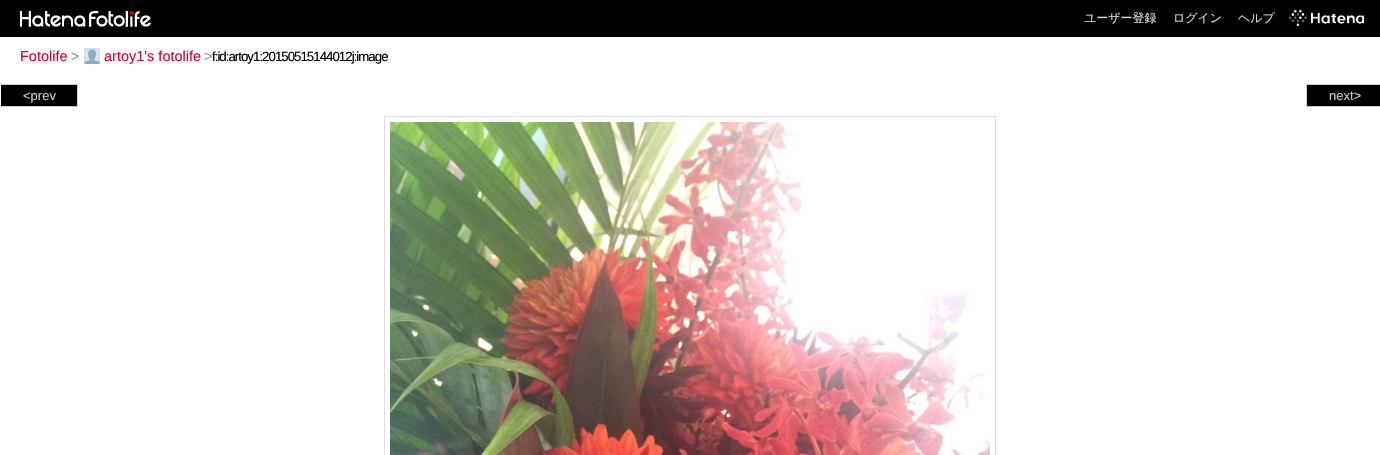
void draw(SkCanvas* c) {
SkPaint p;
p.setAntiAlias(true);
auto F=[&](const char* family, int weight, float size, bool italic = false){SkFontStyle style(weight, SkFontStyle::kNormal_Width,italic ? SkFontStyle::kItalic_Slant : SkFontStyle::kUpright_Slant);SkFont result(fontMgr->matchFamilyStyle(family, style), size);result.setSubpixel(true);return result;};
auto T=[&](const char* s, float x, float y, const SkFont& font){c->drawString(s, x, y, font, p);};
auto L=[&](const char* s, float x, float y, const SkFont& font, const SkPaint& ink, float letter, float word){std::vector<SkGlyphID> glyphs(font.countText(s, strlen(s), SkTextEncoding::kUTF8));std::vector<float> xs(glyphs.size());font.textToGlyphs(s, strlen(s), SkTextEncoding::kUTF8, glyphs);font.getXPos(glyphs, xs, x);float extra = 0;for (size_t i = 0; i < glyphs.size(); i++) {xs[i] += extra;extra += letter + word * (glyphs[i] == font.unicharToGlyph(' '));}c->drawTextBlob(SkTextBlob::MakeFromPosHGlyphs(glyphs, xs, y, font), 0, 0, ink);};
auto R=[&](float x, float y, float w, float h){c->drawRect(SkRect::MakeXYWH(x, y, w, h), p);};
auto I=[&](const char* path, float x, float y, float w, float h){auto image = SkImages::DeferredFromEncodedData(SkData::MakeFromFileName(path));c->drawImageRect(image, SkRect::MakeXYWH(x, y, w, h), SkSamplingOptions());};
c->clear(0xffffffff);
p.setColor(0xff000000);
R(0,0,1380,37);
I("1.png",20,11,66,16);
I("2.png",89,11,62,16);
auto f1 = F("WenQuanYi Zen Hei",500,12);
p.setColor(0xffdddddd);
T("ユーザー登録",1084,22,f1);
T("ログイン",1173,22,f1);
T("ヘルプ",1238,22,f1);
I("3.png",1289,10,75,16);
auto f2 = F("Liberation Sans",400,14.5);
p.setColor(0xffde002f);
T("Fotolife",20,61,f2);
p.setColor(0xff999999);
T(">",71,61,f2);
I("4.png",84,48,16,16);
p.setColor(0xffde002f);
T("artoy1's fotolife",104,61,f2);
p.setColor(0xff999999);
T(">",204,61,f2);
auto f3 = F("Liberation Sans",400,13.3);
p.setColor(0xff000000);
L("f:id:artoy1:20150515144012j:image",212,61,f3,p,-1,0);
R(1,85,76,21);
p.setColor(0xffcccccc);
R(1,84,77,1);
R(77,84,1,23);
R(1,106,77,1);
auto f4 = F("Liberation Sans",400,13);
T("<prev",23,100,f4);
p.setColor(0xff000000);
R(1307,85,73,21);
p.setColor(0xffcccccc);
R(1306,84,74,1);
R(1306,106,74,1);
R(1306,84,1,23);
T("next>",1329,100,f4);
p.setStroke(true);
p.setStrokeWidth(1);
p.setColor(0xffdedede);
c->drawRect(SkRect::MakeXYWH(384.5,116.5,611,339),p);
I("5.png",390,122,600,333);
}
